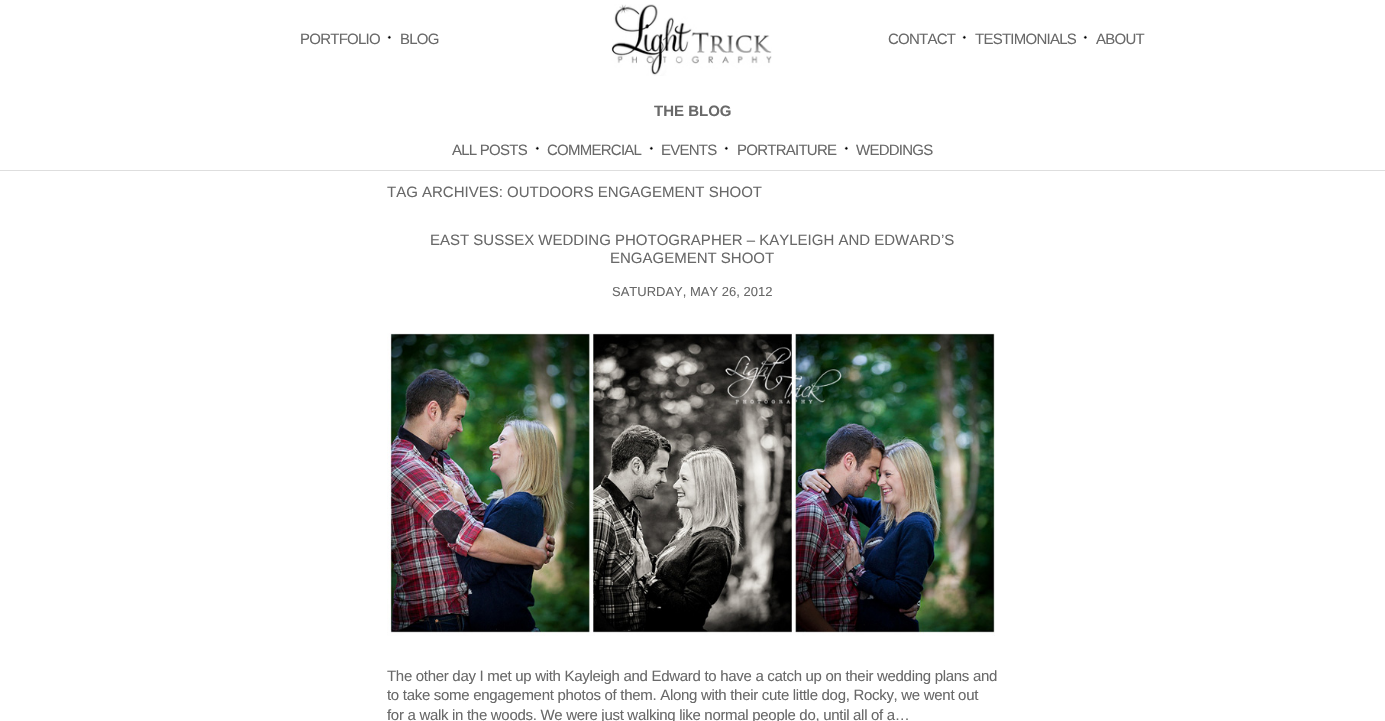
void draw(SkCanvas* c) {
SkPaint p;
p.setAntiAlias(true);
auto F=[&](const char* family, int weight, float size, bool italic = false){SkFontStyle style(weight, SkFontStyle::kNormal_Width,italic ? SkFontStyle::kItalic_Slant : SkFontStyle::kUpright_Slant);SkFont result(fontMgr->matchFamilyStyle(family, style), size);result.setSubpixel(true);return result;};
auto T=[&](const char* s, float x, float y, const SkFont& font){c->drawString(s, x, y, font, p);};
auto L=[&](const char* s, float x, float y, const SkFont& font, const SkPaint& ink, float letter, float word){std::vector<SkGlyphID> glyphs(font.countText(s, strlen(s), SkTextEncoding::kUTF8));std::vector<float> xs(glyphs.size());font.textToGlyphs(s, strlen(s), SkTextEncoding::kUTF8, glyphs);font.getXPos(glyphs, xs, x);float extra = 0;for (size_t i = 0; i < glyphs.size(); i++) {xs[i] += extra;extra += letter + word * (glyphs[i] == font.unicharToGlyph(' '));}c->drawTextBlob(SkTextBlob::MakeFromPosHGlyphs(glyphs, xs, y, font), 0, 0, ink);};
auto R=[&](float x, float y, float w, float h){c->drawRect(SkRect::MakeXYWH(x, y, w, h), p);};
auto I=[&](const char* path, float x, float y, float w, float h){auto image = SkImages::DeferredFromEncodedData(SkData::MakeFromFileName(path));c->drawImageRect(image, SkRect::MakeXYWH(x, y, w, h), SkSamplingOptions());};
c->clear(0xffffffff);
auto f1 = F("Liberation Sans",400,15);
p.setColor(0xff696969);
L("PORTFOLIO",300,44,f1,p,-.75,0);
I("1.png",387,35,4,4);
L("BLOG",400,44,f1,p,-.75,0);
I("2.png",611,4,161,72);
L("CONTACT",888,44,f1,p,-.75,0);
I("1.png",962,35,4,4);
L("TESTIMONIALS",975,44,f1,p,-.75,0);
I("1.png",1083,35,4,4);
L("ABOUT",1096,44,f1,p,-.75,0);
p.setColor(0xffdedede);
R(0,170,1385,1);
auto f2 = F("Liberation Sans",700,15);
p.setColor(0xff696969);
T("THE BLOG",654,116,f2);
L("ALL POSTS",452,155,f1,p,-.75,0);
I("1.png",535,146,4,4);
L("COMMERCIAL",547,155,f1,p,-.75,0);
I("1.png",649,146,4,4);
L("EVENTS",661,155,f1,p,-.75,0);
I("1.png",724,146,4,4);
L("PORTRAITURE",737,155,f1,p,-.75,0);
I("1.png",844,146,4,4);
L("WEDDINGS",856,155,f1,p,-.75,0);
T("TAG ARCHIVES: OUTDOORS ENGAGEMENT SHOOT",387,197,f1);
T("EAST SUSSEX WEDDING PHOTOGRAPHER – KAYLEIGH AND EDWARD’S",430,245,f1);
T("ENGAGEMENT SHOOT",610,263,f1);
auto f3 = F("Liberation Sans",400,13);
T("SATURDAY, MAY 26, 2012",612,296,f3);
I("3.png",387,333,608,303);
L("The other day I met up with Kayleigh and Edward to have a catch up on their wedding plans and",387,681,f1,p,-.3,0);
L("to take some engagement photos of them. Along with their cute little dog, Rocky, we went out",387,700,f1,p,-.3,0);
L("for a walk in the woods. We were just walking like normal people do, until all of a…",387,720,f1,p,-.3,0);
}
